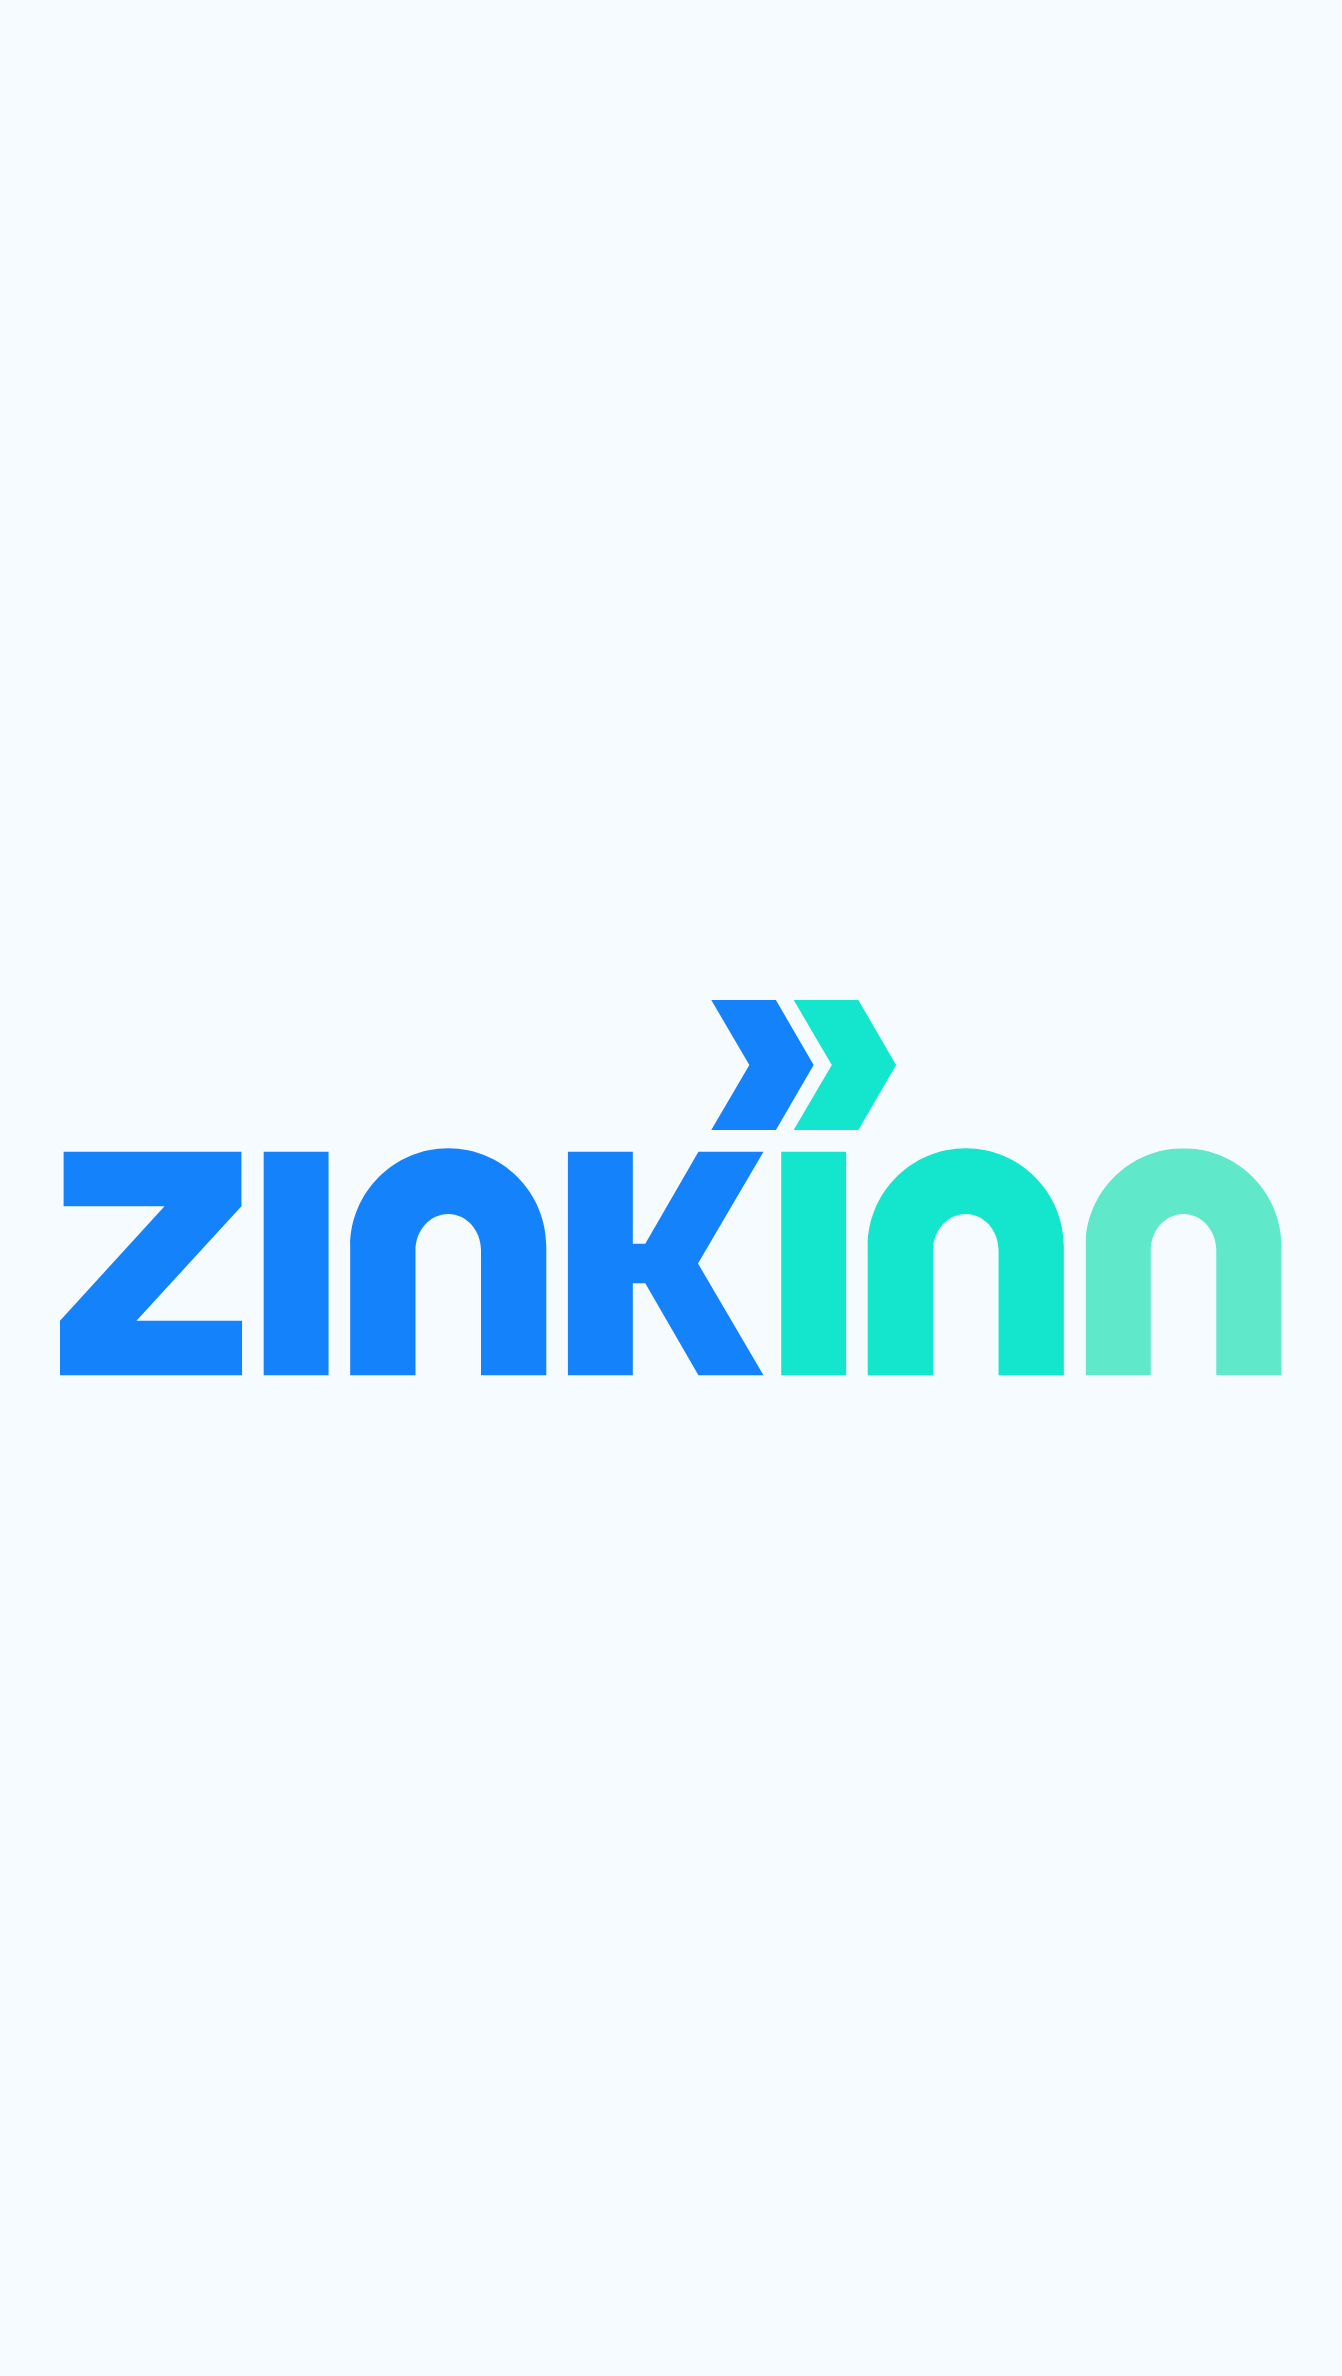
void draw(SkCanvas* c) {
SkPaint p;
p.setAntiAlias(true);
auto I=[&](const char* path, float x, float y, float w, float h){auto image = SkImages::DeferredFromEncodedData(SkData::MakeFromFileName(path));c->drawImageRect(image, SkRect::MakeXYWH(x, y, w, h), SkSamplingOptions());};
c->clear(0xfff5fbff);
I("1.png",60,1000,1222,376);
}
